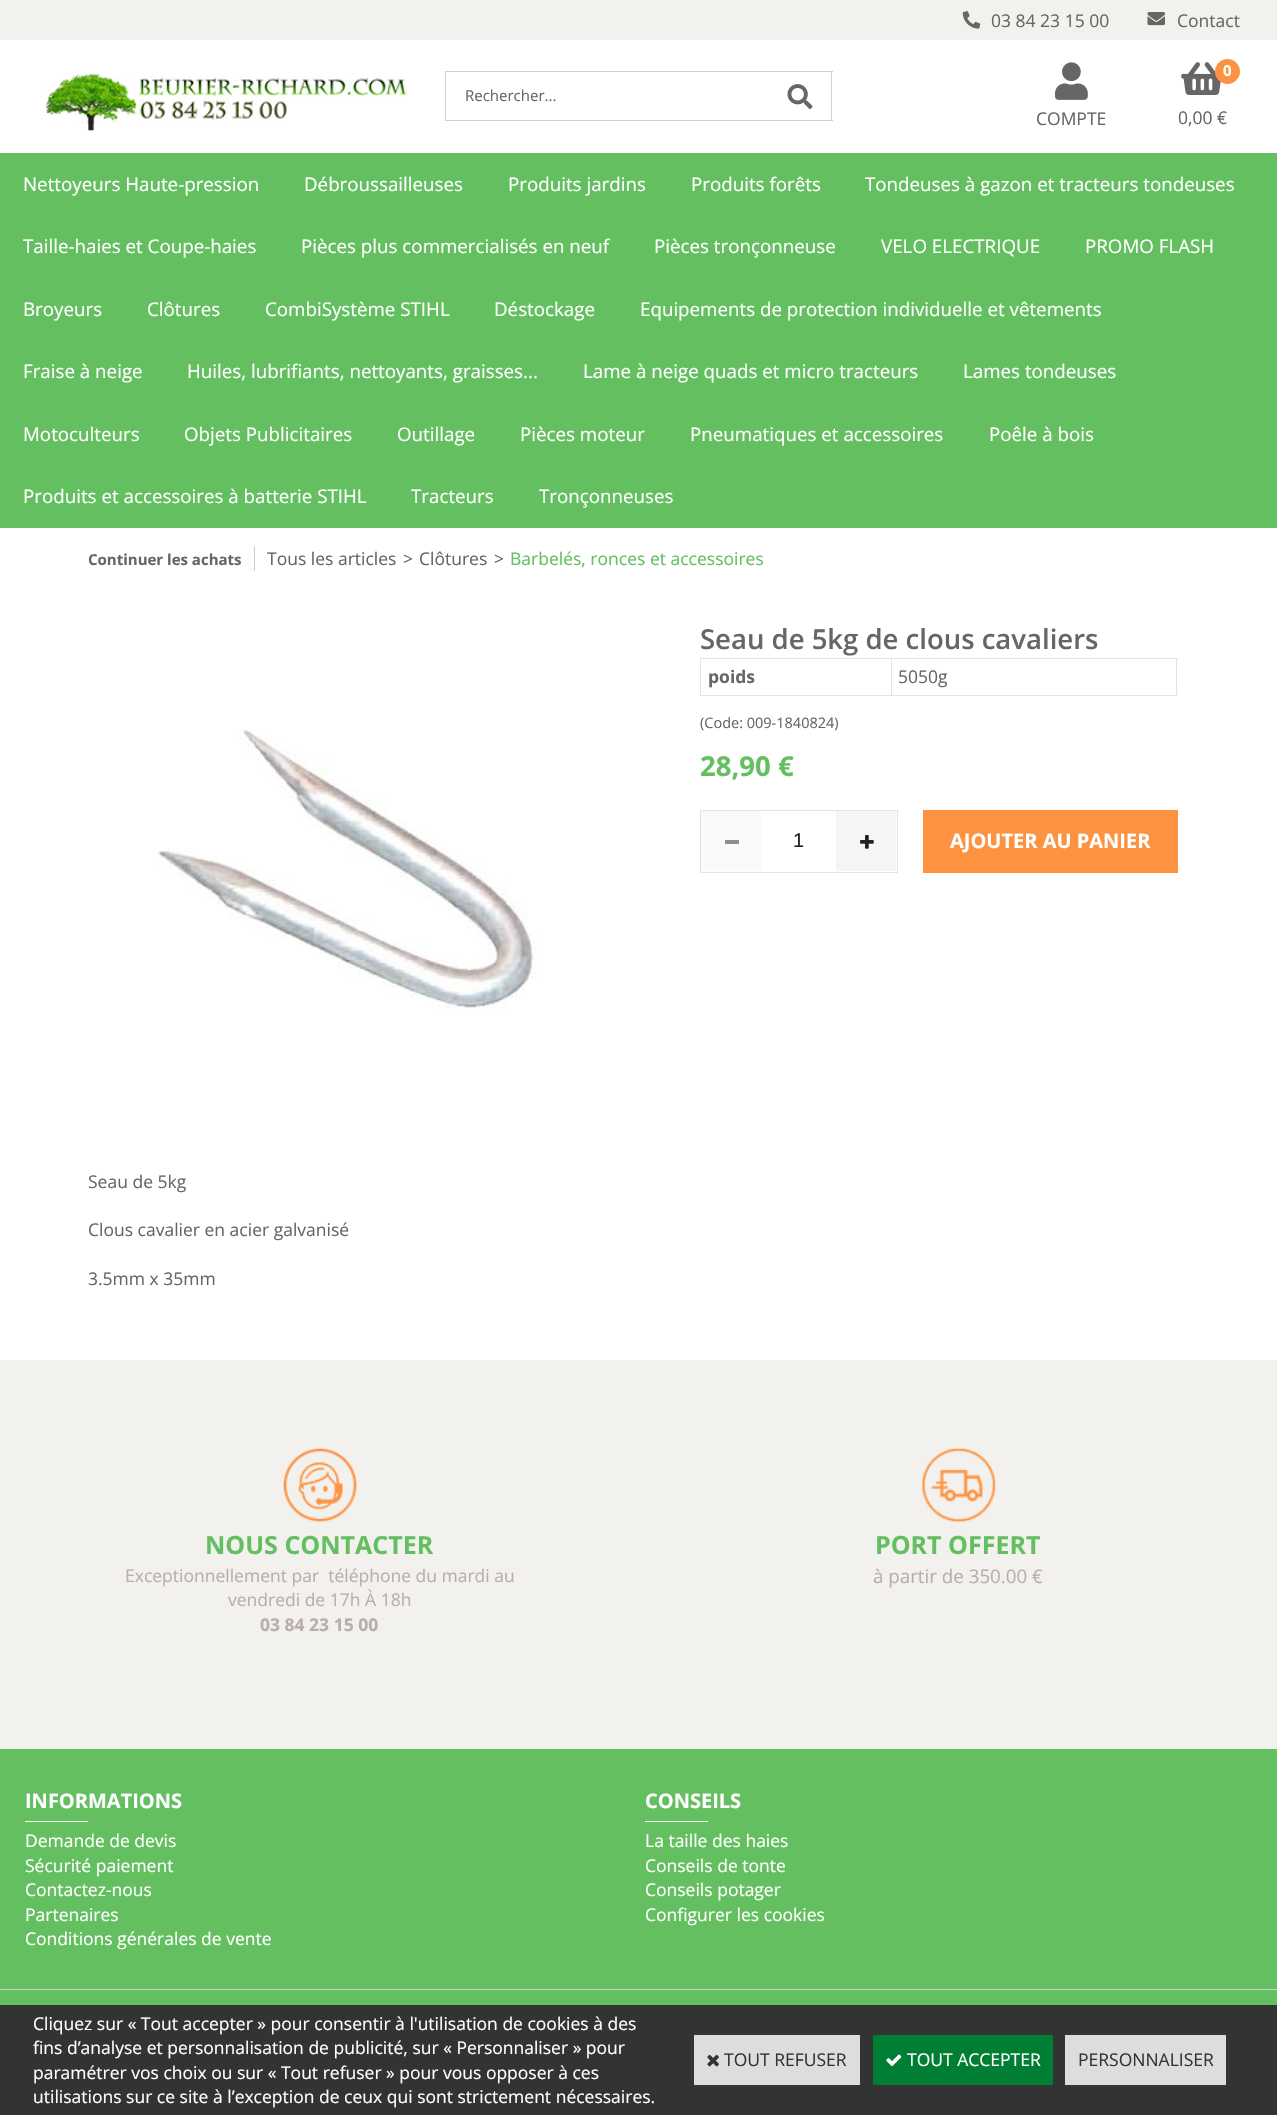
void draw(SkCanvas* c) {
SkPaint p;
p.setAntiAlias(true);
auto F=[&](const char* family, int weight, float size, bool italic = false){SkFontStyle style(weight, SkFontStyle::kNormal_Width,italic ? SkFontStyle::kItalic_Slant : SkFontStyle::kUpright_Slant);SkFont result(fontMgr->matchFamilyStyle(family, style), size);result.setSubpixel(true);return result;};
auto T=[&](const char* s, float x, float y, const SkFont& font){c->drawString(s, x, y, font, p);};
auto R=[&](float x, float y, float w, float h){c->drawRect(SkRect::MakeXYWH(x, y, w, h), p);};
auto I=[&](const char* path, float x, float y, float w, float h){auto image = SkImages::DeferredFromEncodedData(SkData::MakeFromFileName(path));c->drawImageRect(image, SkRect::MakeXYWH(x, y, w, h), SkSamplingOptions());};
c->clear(0xffffffff);
p.setColor(0xfff3f1ee);
R(0,0,1277,40);
I("1.png",962,11,19,18);
auto f1 = F("Open Sans",400,17.5);
p.setColor(0xff676566);
T("03 84 23 15 00",991,27,f1);
I("2.png",1147,12,18,14);
T("Contact",1177,27,f1);
I("3.png",45,73,363,58);
p.setColor(0xffd0d0d0);
R(445,71,388,1);
R(445,120,324,1);
R(445,71,1,50);
auto f2 = F("Open Sans",400,15);
p.setColor(0xff676566);
T("Rechercher...",465,101,f2);
p.setColor(0xffd0d0d0);
R(831,71,1,50);
R(769,120,64,1);
I("4.png",787,84,26,25);
I("5.png",1055,62,33,38);
p.setColor(0xff676566);
T("COMPTE",1036,125,f1);
I("6.png",1181,62,40,33);
p.setColor(0xfffd9340);
c->drawCircle(1227.5,71.5,12.5,p);
auto f3 = F("Open Sans",700,15);
p.setColor(0xffffffff);
T("0",1223,76,f3);
p.setColor(0xff676566);
T("0,00 €",1178,124,f1);
p.setColor(0xff64bf61);
R(0,153,1277,375);
auto f4 = F("Open Sans",400,18.75);
p.setColor(0xffffffff);
T("Nettoyeurs Haute-pression",23,191,f4);
T("Débroussailleuses",304,191,f4);
T("Produits jardins",508,191,f4);
T("Produits forêts",691,191,f4);
T("Tondeuses à gazon et tracteurs tondeuses",865,191,f4);
T("Taille-haies et Coupe-haies",23,253,f4);
T("Pièces plus commercialisés en neuf",301,253,f4);
T("Pièces tronçonneuse",654,253,f4);
T("VELO ELECTRIQUE",881,253,f4);
T("PROMO FLASH",1085,253,f4);
T("Broyeurs",23,316,f4);
T("Clôtures",147,316,f4);
T("CombiSystème STIHL",265,316,f4);
T("Déstockage",494,316,f4);
T("Equipements de protection individuelle et vêtements",640,316,f4);
T("Fraise à neige",23,378,f4);
T("Huiles, lubrifiants, nettoyants, graisses...",187,378,f4);
T("Lame à neige quads et micro tracteurs",583,378,f4);
T("Lames tondeuses",963,378,f4);
T("Motoculteurs",23,441,f4);
T("Objets Publicitaires",184,441,f4);
T("Outillage",397,441,f4);
T("Pièces moteur",520,441,f4);
T("Pneumatiques et accessoires",690,441,f4);
T("Poêle à bois",989,441,f4);
T("Produits et accessoires à batterie STIHL",23,503,f4);
T("Tracteurs",411,503,f4);
T("Tronçonneuses",539,503,f4);
p.setColor(0xff676566);
T("Continuer les achats",88,565,f3);
p.setColor(0xffcccccc);
R(254,546,1,25);
p.setColor(0xff676566);
T("Tous les articles",267,565,f1);
T(">",403,565,f1);
T("Clôtures",419,565,f1);
T(">",494,565,f1);
p.setColor(0xff64bf61);
T("Barbelés, ronces et accessoires",510,565,f1);
I("7.png",157,730,380,283);
auto f5 = F("Open Sans",600,27.5);
p.setColor(0xff676566);
T("Seau de 5kg de clous cavaliers",700,649,f5);
p.setColor(0xffe3e3e3);
R(700,658,478,1);
R(700,695,191,1);
R(700,659,1,37);
auto f6 = F("Open Sans",700,17.5);
p.setColor(0xff676566);
T("poids",708,683,f6);
p.setColor(0xffe3e3e3);
R(1176,659,1,37);
R(891,695,287,1);
R(891,659,1,37);
p.setColor(0xff676566);
T("5050g",898,683,f1);
auto f7 = F("Open Sans",400,14.5);
T("(Code: 009-1840824)",700,728,f7);
auto f8 = F("Open Sans",700,27.5);
p.setColor(0xff64bf61);
T("28,90 €",700,776,f8);
p.setStroke(true);
p.setStrokeWidth(1);
p.setColor(0xffe3e3e3);
c->drawRect(SkRect::MakeXYWH(700.5,810.5,197,62),p);
p.setStroke(false);
p.setColor(0xfffafafa);
R(701,811,60,60);
p.setColor(0xff8e8e8e);
R(725,840,14,4);
auto f9 = F("Liberation Sans",400,20);
p.setColor(0xff212121);
T("1",793,847,f9);
p.setColor(0xfff5f5f5);
R(836,811,60,60);
I("8.png",860,835,14,14);
p.setColor(0xfffd9340);
R(923,810,255,63);
auto f10 = F("Open Sans",700,20);
p.setColor(0xffffffff);
T("AJOUTER AU PANIER",950,848,f10);
p.setColor(0xff676566);
T("Seau de 5kg",88,1188,f1);
T("Clous cavalier en acier galvanisé",88,1236,f1);
T("3.5mm x 35mm",88,1285,f1);
p.setColor(0xff64bf61);
R(0,1749,1277,256);
p.setColor(0xfff3f1ee);
R(0,1360,1277,389);
I("9.png",283,1448,74,74);
auto f11 = F("Open Sans",700,25);
p.setColor(0xff64bf61);
T("NOUS CONTACTER",205,1554,f11);
p.setColor(0xffb9adad);
T("Exceptionnellement par  téléphone du mardi au",125,1582,f1);
T("vendredi de 17h À 18h",228,1606,f1);
T("03 84 23 15 00",260,1631,f6);
I("10.png",922,1448,74,74);
p.setColor(0xff64bf61);
T("PORT OFFERT",875,1554,f11);
p.setColor(0xffb9adad);
T("à partir de 350.00 €",873,1583,f4);
p.setColor(0xffffffff);
T("INFORMATIONS",25,1808,f10);
R(25,1821,63,1);
T("Demande de devis",25,1847,f1);
T("Sécurité paiement",25,1872,f1);
T("Contactez-nous",25,1896,f1);
T("Partenaires",25,1921,f1);
T("Conditions générales de vente",25,1945,f1);
T("CONSEILS",645,1808,f10);
R(645,1821,63,1);
T("La taille des haies",645,1847,f1);
T("Conseils de tonte",645,1872,f1);
T("Conseils potager",645,1896,f1);
T("Configurer les cookies",645,1921,f1);
p.setColor(0xffd0d0d0);
R(0,1989,1277,1);
p.setColor(0xff333333);
R(0,2005,1277,110);
p.setColor(0xffffffff);
T("Cliquez sur « Tout accepter » pour consentir à l'utilisation de cookies à des",33,2030,f1);
T("fins d’analyse et personnalisation de publicité, sur « Personnaliser » pour",33,2054,f1);
T("paramétrer vos choix ou sur « Tout refuser » pour vous opposer à ces",33,2079,f1);
T("utilisations sur ce site à l’exception de ceux qui sont strictement nécessaires.",33,2103,f1);
p.setColor(0xffdddddd);
R(694,2035,166,50);
I("11.png",707,2054,12,13);
p.setColor(0xff333333);
T("TOUT REFUSER",724,2066,f1);
p.setColor(0xff007e33);
R(873,2035,180,50);
I("12.png",886,2054,16,13);
p.setColor(0xffffffff);
T("TOUT ACCEPTER",907,2066,f1);
p.setColor(0xffdddddd);
R(1065,2035,161,50);
p.setColor(0xff333333);
T("PERSONNALISER",1078,2066,f1);
}
